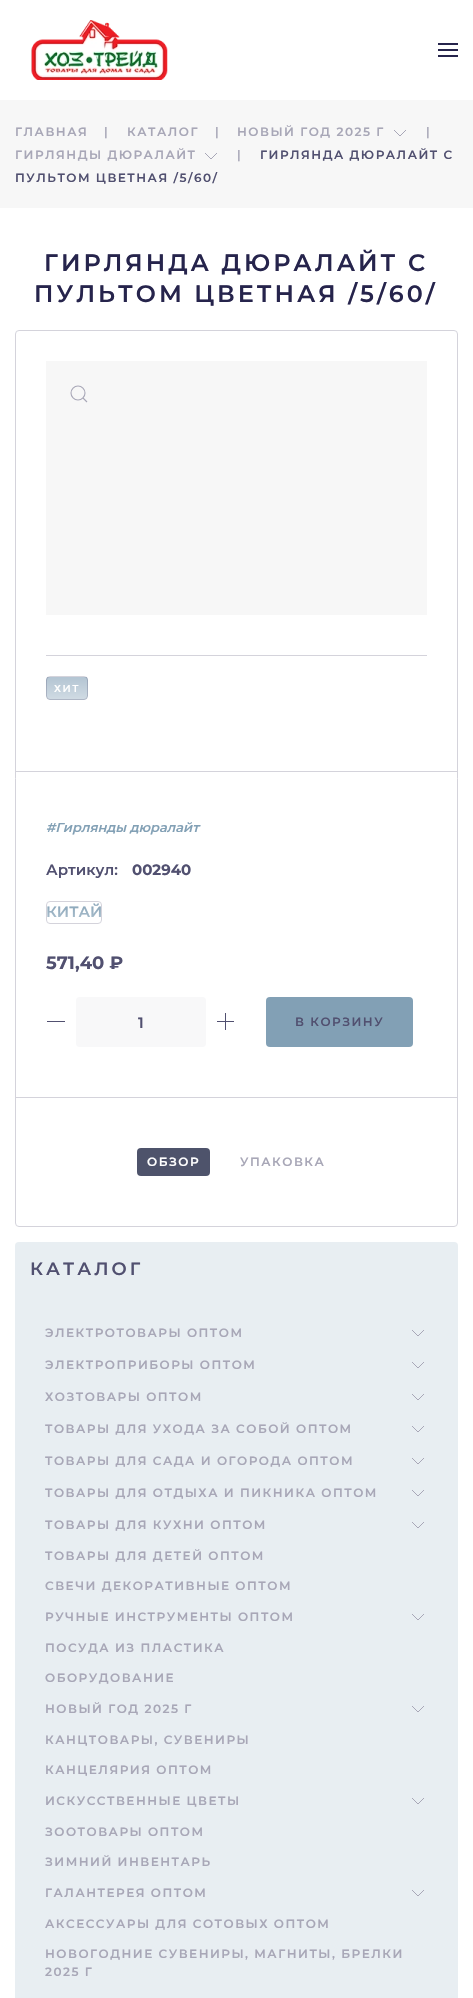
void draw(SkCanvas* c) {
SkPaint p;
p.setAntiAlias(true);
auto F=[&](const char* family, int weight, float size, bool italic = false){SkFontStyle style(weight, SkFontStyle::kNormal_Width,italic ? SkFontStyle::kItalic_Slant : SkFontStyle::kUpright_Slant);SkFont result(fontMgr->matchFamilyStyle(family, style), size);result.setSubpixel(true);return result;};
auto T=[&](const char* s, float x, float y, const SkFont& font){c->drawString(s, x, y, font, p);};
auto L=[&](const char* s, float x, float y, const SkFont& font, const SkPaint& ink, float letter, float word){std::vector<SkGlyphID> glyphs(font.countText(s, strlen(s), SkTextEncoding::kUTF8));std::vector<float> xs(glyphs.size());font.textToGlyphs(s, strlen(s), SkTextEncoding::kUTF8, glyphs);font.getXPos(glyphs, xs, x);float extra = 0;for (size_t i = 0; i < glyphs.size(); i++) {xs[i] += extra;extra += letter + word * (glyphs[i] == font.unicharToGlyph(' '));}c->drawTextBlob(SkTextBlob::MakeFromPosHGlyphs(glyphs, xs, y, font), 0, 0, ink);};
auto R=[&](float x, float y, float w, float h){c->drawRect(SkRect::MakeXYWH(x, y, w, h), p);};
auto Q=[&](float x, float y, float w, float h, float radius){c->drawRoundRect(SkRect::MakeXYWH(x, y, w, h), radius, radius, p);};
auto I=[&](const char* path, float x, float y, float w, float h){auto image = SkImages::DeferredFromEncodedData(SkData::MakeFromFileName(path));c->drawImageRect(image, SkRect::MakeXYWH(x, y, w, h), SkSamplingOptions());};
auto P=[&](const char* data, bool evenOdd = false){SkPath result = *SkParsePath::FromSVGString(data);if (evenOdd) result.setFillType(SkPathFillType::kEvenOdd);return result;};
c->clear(0xffffffff);
I("1.png",31,20,137,60);
p.setColor(0xff26244c);
R(438,43,20,2);
R(438,49,20,2);
R(438,55,20,2);
p.setColor(0xfff7f7f7);
R(0,100,473,108);
auto f1 = F("Montserrat",100,12);
p.setColor(0xffa8a7b7);
L("ГЛАВНАЯ",15,136,f1,p,1.5,0);
T("|",215,136,f1);
L("НОВЫЙ ГОД 2025 Г",237,136,f1,p,1.5,0);
p.setStroke(true);
p.setStrokeWidth(1);
c->drawPath(P("M406 130l-6 6l-6-6"),p);
p.setStroke(false);
T("|",426,136,f1);
L("ГИРЛЯНДЫ ДЮРАЛАЙТ",15,159,f1,p,1.5,0);
p.setStroke(true);
c->drawPath(P("M217 153l-6 6l-6-6"),p);
p.setStroke(false);
T("|",104,136,f1);
L("КАТАЛОГ",127,136,f1,p,1.5,0);
T("|",237,159,f1);
p.setColor(0xff515070);
L("ГИРЛЯНДА ДЮРАЛАЙТ С",260,159,f1,p,1.5,0);
L("ПУЛЬТОМ ЦВЕТНАЯ /5/60/",15,182,f1,p,1.5,0);
auto f2 = F("Montserrat",100,23.75);
p.setColor(0xff26244c);
L("ГИРЛЯНДА ДЮРАЛАЙТ С",44,271,f2,p,3,0);
L("ПУЛЬТОМ ЦВЕТНАЯ /5/60/",34,302,f2,p,3,0);
p.setStroke(true);
p.setColor(0xffd4d3db);
c->drawRoundRect(SkRect::MakeXYWH(15.5,330.5,442,896),3.5,3.5,p);
p.setStroke(false);
p.setColor(0xfff7f7f7);
R(46,361,381,254);
p.setStroke(true);
p.setStrokeWidth(1.1);
p.setColor(0xffa8a7b7);
c->drawCircle(78,393,7,p);
c->drawPath(P("M83 398l4 4z"),p);
p.setStroke(false);
p.setColor(0xffd4d3db);
R(46,655,381,1);
c->save();
c->clipPath(P("M50 676h34c2 0 4 2 4 4v16c0 2-2 4-4 4h-34c-2 0-4-2-4-4v-16c0-2 2-4 4-4z"),true);
p.setColor(0xffb2c4d2);
c->drawPath(P("M46 677h42v19c0 2-2 4-4 4h-34c-2 0-4-2-4-4z"),p);
c->restore();
auto f3 = F("Montserrat",100,10);
p.setColor(0xffffffff);
L("ХИТ",54,692,f3,p,1.5,0);
{
const SkColor colors[] = {0x00ffffff,0x66ffffff};
const float stops[] = {0,1};
const SkPoint ends[] = {{67,676}, {67,700}};
p.setShader(SkGradientShader::MakeLinear(ends, colors, stops, 2, SkTileMode::kClamp));
p.setAlpha(255);
}
Q(46,676,42,24,4);
p.setStroke(true);
p.setStrokeWidth(1);
p.setShader(nullptr);
p.setColor(0x3326244c);
c->drawRoundRect(SkRect::MakeXYWH(46.5,676.5,41,23),3.5,3.5,p);
p.setStroke(false);
p.setColor(0xffd4d3db);
R(16,771,441,1);
auto f4 = F("Montserrat",100,13,true);
p.setColor(0xff82a0b5);
T("#Гирлянды дюралайт",46,832,f4);
auto f5 = F("Montserrat",100,15);
p.setColor(0xff515070);
T("Артикул:",46,875,f5);
auto f6 = F("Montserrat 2",100,15);
T("002940",132,875,f6);
p.setColor(0xff82a0b5);
T("КИТАЙ",46,917,f5);
{
const SkColor colors[] = {0x00ffffff,0x66ffffff};
const float stops[] = {0,1};
const SkPoint ends[] = {{74,901}, {74,924}};
p.setShader(SkGradientShader::MakeLinear(ends, colors, stops, 2, SkTileMode::kClamp));
p.setAlpha(255);
}
c->drawRoundRect(SkRect::MakeXYWH(46.5,901.5,55,22),3.5,3.5,p);
p.setStroke(true);
p.setShader(nullptr);
p.setColor(0xffd4d3db);
c->drawRoundRect(SkRect::MakeXYWH(46.5,901.5,55,22),3.5,3.5,p);
auto f7 = F("Montserrat 2",100,18);
p.setStroke(false);
p.setColor(0xff515070);
T("571,40 ₽",46,969,f7);
R(47,1021,18,1);
p.setColor(0xfff8f8f9);
Q(76,997,130,50,4);
p.setColor(0xff515070);
T("1",138,1028,f5);
R(225,1013,1,17);
R(217,1021,17,1);
p.setColor(0xff82a0b5);
Q(266,997,147,50,4);
p.setColor(0xff515070);
L("В КОРЗИНУ",295,1026,f1,p,1.5,0);
p.setColor(0xffd4d3db);
R(16,1097,441,1);
p.setColor(0xff4e536b);
Q(137,1148,73,28,4);
p.setColor(0xffffffff);
L("ОБЗОР",147,1166,f1,p,1.5,0);
p.setColor(0xffa8a7b7);
L("УПАКОВКА",240,1166,f1,p,1.5,0);
p.setColor(0xffe8eef2);
Q(15,1242,443,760,4);
auto f8 = F("Montserrat",100,18);
p.setColor(0xff515070);
L("КАТАЛОГ",30,1275,f8,p,3,0);
p.setColor(0xffa8a7b7);
L("ЭЛЕКТРОТОВАРЫ ОПТОМ",45,1337,f1,p,1.5,0);
p.setStroke(true);
c->drawPath(P("M424 1330l-6 6l-6-6m12 32l-6 6l-6-6"),p);
p.setStroke(false);
L("ЭЛЕКТРОПРИБОРЫ ОПТОМ",45,1369,f1,p,1.5,0);
L("ХОЗТОВАРЫ ОПТОМ",45,1401,f1,p,1.5,0);
p.setStroke(true);
c->drawPath(P("M424 1394l-6 6l-6-6m12 32l-6 6l-6-6"),p);
p.setStroke(false);
L("ТОВАРЫ ДЛЯ УХОДА ЗА СОБОЙ ОПТОМ",45,1433,f1,p,1.5,0);
L("ТОВАРЫ ДЛЯ САДА И ОГОРОДА ОПТОМ",45,1465,f1,p,1.5,0);
p.setStroke(true);
c->drawPath(P("M424 1458l-6 6l-6-6m12 32l-6 6l-6-6"),p);
p.setStroke(false);
L("ТОВАРЫ ДЛЯ ОТДЫХА И ПИКНИКА ОПТОМ",45,1497,f1,p,1.5,0);
L("ТОВАРЫ ДЛЯ КУХНИ ОПТОМ",45,1529,f1,p,1.5,0);
p.setStroke(true);
c->drawPath(P("M424 1522l-6 6l-6-6"),p);
p.setStroke(false);
L("ТОВАРЫ ДЛЯ ДЕТЕЙ ОПТОМ",45,1560,f1,p,1.5,0);
L("СВЕЧИ ДЕКОРАТИВНЫЕ ОПТОМ",45,1590,f1,p,1.5,0);
L("РУЧНЫЕ ИНСТРУМЕНТЫ ОПТОМ",45,1621,f1,p,1.5,0);
p.setStroke(true);
c->drawPath(P("M424 1614l-6 6l-6-6"),p);
p.setStroke(false);
L("ПОСУДА ИЗ ПЛАСТИКА",45,1652,f1,p,1.5,0);
L("ОБОРУДОВАНИЕ",45,1682,f1,p,1.5,0);
L("НОВЫЙ ГОД 2025 Г",45,1713,f1,p,1.5,0);
p.setStroke(true);
c->drawPath(P("M424 1706l-6 6l-6-6"),p);
p.setStroke(false);
L("КАНЦТОВАРЫ, СУВЕНИРЫ",45,1744,f1,p,1.5,0);
L("КАНЦЕЛЯРИЯ ОПТОМ",45,1774,f1,p,1.5,0);
L("ИСКУССТВЕННЫЕ ЦВЕТЫ",45,1805,f1,p,1.5,0);
p.setStroke(true);
c->drawPath(P("M424 1798l-6 6l-6-6"),p);
p.setStroke(false);
L("ЗООТОВАРЫ ОПТОМ",45,1836,f1,p,1.5,0);
L("ЗИМНИЙ ИНВЕНТАРЬ",45,1866,f1,p,1.5,0);
L("ГАЛАНТЕРЕЯ ОПТОМ",45,1897,f1,p,1.5,0);
p.setStroke(true);
c->drawPath(P("M424 1890l-6 6l-6-6"),p);
p.setStroke(false);
L("АКСЕССУАРЫ ДЛЯ СОТОВЫХ ОПТОМ",45,1928,f1,p,1.5,0);
L("НОВОГОДНИЕ СУВЕНИРЫ, МАГНИТЫ, БРЕЛКИ",45,1958,f1,p,1.5,0);
L("2025 Г",45,1976,f1,p,1.5,0);
}
